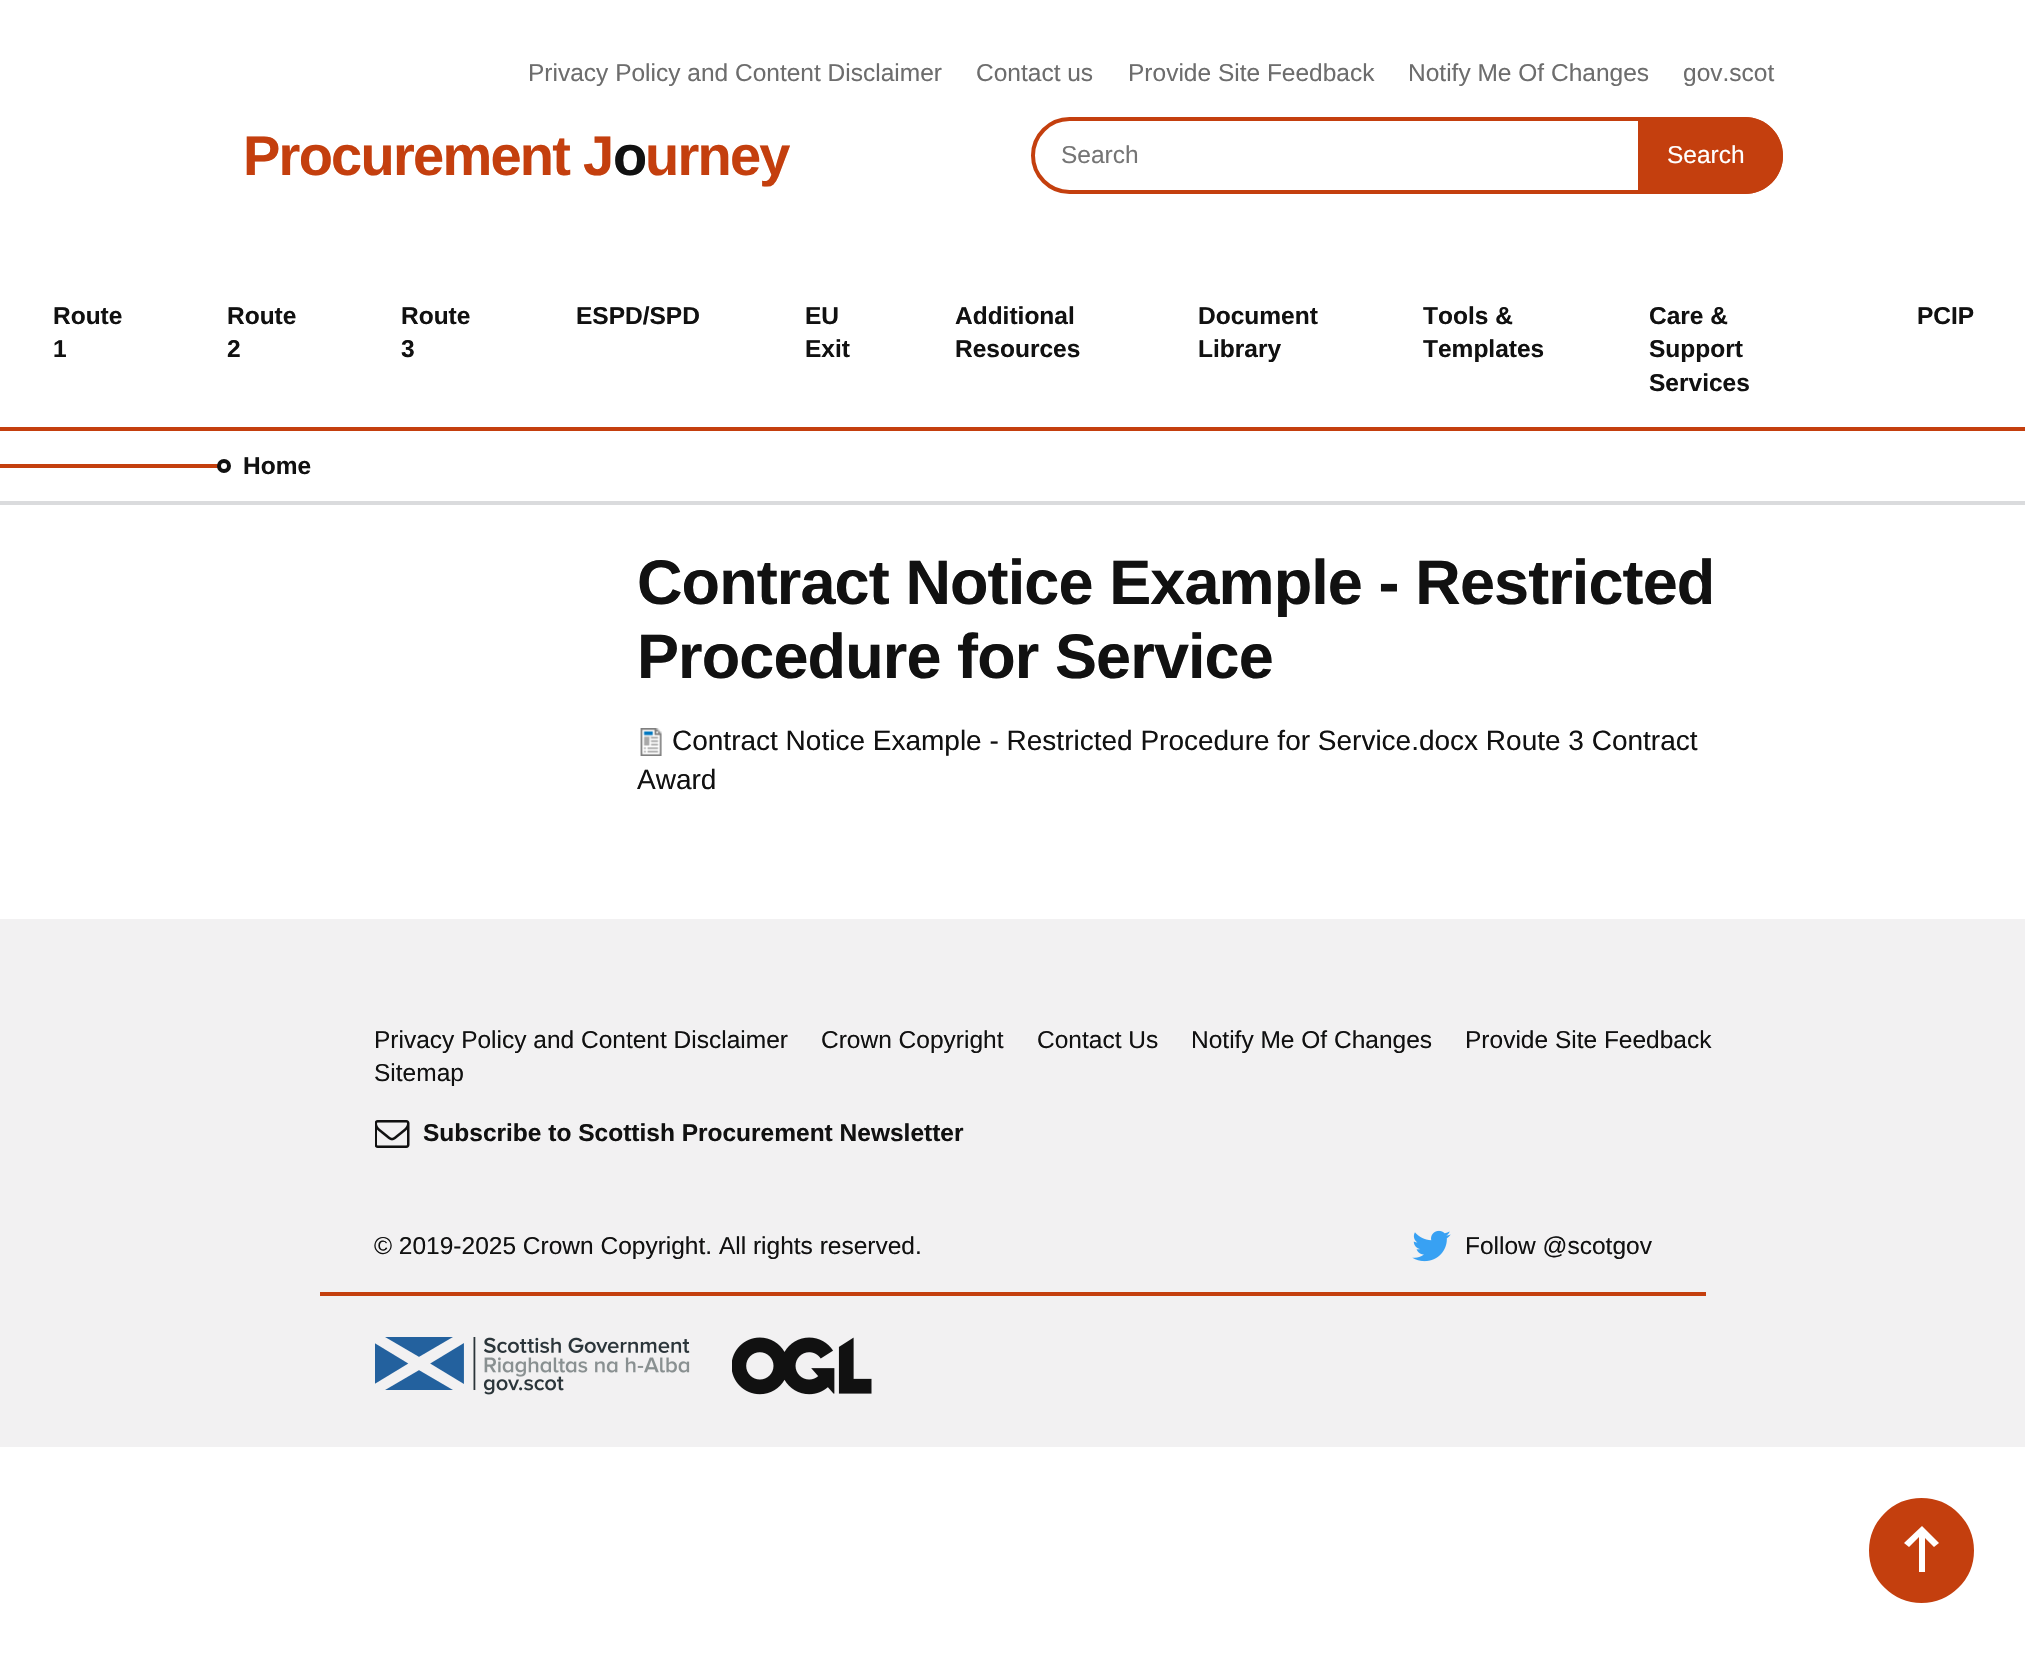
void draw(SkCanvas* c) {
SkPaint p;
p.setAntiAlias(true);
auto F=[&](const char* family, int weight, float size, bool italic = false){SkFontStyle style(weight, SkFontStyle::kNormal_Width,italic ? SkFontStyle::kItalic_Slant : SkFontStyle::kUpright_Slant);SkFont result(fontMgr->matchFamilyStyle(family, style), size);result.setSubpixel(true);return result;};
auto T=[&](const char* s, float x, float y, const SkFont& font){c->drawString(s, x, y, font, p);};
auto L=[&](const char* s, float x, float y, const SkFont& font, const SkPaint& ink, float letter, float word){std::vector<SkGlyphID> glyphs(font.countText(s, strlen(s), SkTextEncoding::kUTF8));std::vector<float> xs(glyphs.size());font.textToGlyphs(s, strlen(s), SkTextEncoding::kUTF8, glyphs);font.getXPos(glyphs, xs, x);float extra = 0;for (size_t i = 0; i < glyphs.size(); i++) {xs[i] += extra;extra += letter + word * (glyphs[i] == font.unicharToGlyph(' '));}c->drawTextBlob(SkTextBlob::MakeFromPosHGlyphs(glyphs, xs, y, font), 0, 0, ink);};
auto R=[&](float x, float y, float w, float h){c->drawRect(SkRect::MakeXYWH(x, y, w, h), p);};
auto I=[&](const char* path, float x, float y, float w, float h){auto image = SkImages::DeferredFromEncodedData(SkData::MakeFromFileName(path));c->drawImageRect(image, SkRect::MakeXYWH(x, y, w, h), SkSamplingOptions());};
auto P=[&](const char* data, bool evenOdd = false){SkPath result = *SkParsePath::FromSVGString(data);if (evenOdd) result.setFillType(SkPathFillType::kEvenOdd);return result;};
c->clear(0xffffffff);
auto f1 = F("Liberation Sans",400,24.5);
p.setColor(0xff6d6d6d);
T("Privacy Policy and Content Disclaimer",528,81,f1);
T("Contact us",976,81,f1);
T("Provide Site Feedback",1128,81,f1);
T("Notify Me Of Changes",1408,81,f1);
T("gov.scot",1683,81,f1);
auto f2 = F("Liberation Sans",700,56);
p.setColor(0xffc43f0e);
L("Procurement J",243,175,f2,p,-1.75,0);
p.setColor(0xff111111);
L("o",613,175,f2,p,-1.75,0);
p.setColor(0xffc43f0e);
L("urney",645,175,f2,p,-1.75,0);
p.setStroke(true);
p.setStrokeWidth(4);
c->drawPath(P("M1069.5 119h570.5v73h-570.5c-20 0-36.5-16.5-36.5-36.5c0-20 16.5-36.5 36.5-36.5z"),p);
p.setStroke(false);
p.setColor(0xff757575);
T("Search",1061,163,f1);
p.setColor(0xffc43f0e);
c->drawPath(P("M1642 117h102.5c21.5 0 38.5 17 38.5 38.5c0 21.5-17 38.5-38.5 38.5h-102.5z"),p);
c->drawPath(P("M1642 117h103c21 0 38 17 38 39c0 21-17 38-38 38h-103zm0 4h103c19 0 35 15 35 35c0 19-16 35-35 35h-103z",true),p);
p.setColor(0xffffffff);
T("Search",1667,163,f1);
p.setColor(0xffc43f0e);
R(0,427,2025,4);
auto f3 = F("Liberation Sans",700,24.5);
p.setColor(0xff111111);
T("Route",53,324,f3);
T("1",53,357,f3);
T("Route",227,324,f3);
T("2",227,357,f3);
T("Route",401,324,f3);
T("3",401,357,f3);
T("ESPD/SPD",576,324,f3);
T("EU",805,324,f3);
T("Exit",805,357,f3);
T("Additional",955,324,f3);
T("Resources",955,357,f3);
T("Document",1198,324,f3);
T("Library",1198,357,f3);
T("Tools &",1423,324,f3);
T("Templates",1423,357,f3);
T("Care &",1649,324,f3);
T("Support",1649,357,f3);
T("Services",1649,391,f3);
T("PCIP",1917,324,f3);
p.setColor(0xffdadbdd);
R(0,501,2025,4);
p.setColor(0xffc43f0e);
R(0,464,226,4);
p.setColor(0xffffffff);
c->drawCircle(224,466,5,p);
p.setStroke(true);
p.setColor(0xff111111);
c->drawCircle(224,466,5,p);
p.setStroke(false);
T("Home",243,474,f3);
auto f4 = F("Liberation Sans",700,63);
L("Contract Notice Example - Restricted",637,604,f4,p,-.9,0);
L("Procedure for Service",637,678,f4,p,-.9,0);
I("1.png",640,728,22,28);
auto f5 = F("Liberation Sans",400,28);
T("Contract Notice Example - Restricted Procedure for Service.docx Route 3 Contract",672,750,f5);
T("Award",637,789,f5);
p.setColor(0xffc43f0e);
c->drawCircle(1921.5,1550.5,50.5,p);
p.setStroke(true);
c->drawCircle(1921.5,1550.5,50.5,p);
p.setStroke(false);
p.setColor(0xffffffff);
c->drawPath(P("M1904 1543l18-17l17 17l-5 4l-9-9v34h-6v-35l-10 10z"),p);
p.setColor(0xfff2f1f2);
R(0,919,2025,528);
p.setColor(0xff111111);
T("Privacy Policy and Content Disclaimer",374,1048,f1);
T("Crown Copyright",821,1048,f1);
T("Contact Us",1037,1048,f1);
T("Notify Me Of Changes",1191,1048,f1);
T("Provide Site Feedback",1465,1048,f1);
T("Sitemap",374,1081,f1);
I("2.png",375,1120,35,28);
T("Subscribe to Scottish Procurement Newsletter",423,1141,f3);
T("© 2019-2025 Crown Copyright. All rights reserved.",374,1254,f1);
I("3.png",1412,1230,39,32);
T("Follow @scotgov",1465,1254,f1);
p.setColor(0xffc43f0e);
R(320,1292,1386,4);
I("4.png",375,1337,315,58);
I("5.png",732,1337,140,58);
}
